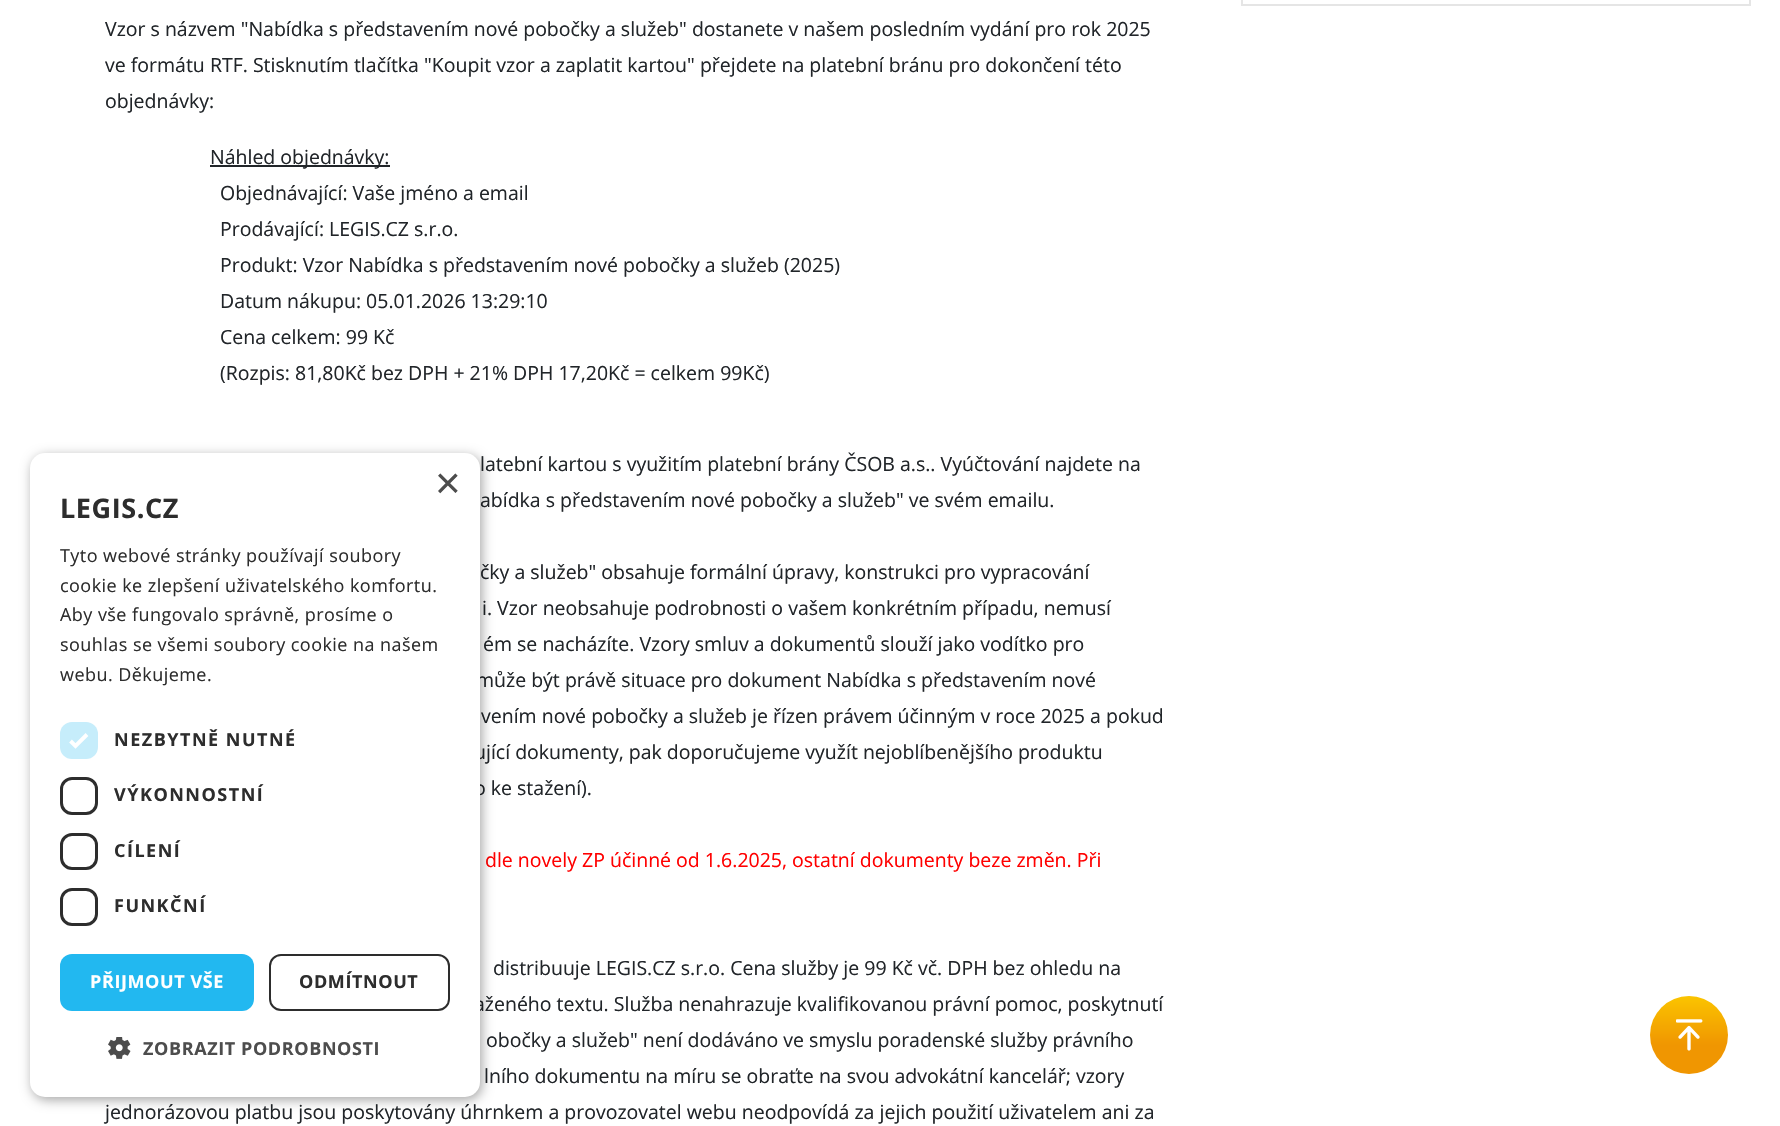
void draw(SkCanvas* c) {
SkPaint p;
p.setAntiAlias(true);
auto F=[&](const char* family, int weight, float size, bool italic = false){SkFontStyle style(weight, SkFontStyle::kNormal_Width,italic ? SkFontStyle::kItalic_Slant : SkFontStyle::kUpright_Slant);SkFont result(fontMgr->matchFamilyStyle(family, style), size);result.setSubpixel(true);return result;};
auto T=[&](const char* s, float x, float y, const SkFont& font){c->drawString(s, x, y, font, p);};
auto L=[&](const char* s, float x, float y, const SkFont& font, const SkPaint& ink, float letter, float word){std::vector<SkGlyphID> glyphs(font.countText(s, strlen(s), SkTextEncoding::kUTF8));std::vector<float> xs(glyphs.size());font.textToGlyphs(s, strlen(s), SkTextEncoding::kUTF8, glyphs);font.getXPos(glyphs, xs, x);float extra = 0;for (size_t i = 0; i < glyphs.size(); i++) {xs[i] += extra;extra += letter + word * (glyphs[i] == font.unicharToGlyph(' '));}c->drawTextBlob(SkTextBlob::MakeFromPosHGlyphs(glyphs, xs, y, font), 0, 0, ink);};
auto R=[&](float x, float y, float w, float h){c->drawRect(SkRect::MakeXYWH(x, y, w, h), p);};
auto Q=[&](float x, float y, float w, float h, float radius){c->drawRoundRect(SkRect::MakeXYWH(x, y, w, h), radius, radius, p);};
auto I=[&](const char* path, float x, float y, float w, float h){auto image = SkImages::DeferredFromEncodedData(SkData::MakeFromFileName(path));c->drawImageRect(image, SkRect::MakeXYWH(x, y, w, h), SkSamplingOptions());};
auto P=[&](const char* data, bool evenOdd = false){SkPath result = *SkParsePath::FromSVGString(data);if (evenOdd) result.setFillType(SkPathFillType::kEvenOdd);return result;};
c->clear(0xffffffff);
p.setStroke(true);
p.setStrokeWidth(2);
p.setColor(0xffe5e5e5);
c->drawRect(SkRect::MakeXYWH(1242,-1,508,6),p);
auto f1 = F("Open Sans",400,19.5);
p.setStroke(false);
p.setColor(0xff212529);
T("Vzor s názvem \"Nabídka s představením nové pobočky a služeb\" dostanete v našem posledním vydání pro rok 2025",105,36,f1);
T("ve formátu RTF. Stisknutím tlačítka \"Koupit vzor a zaplatit kartou\" přejdete na platební bránu pro dokončení této",105,72,f1);
T("objednávky:",105,108,f1);
R(210,165,180,2);
T("Náhled objednávky:",210,164,f1);
T("Objednávající: Vaše jméno a email",220,200,f1);
T("Prodávající: LEGIS.CZ s.r.o.",220,236,f1);
T("Produkt: Vzor Nabídka s představením nové pobočky a služeb (2025)",220,272,f1);
T("Datum nákupu: 05.01.2026 13:29:10",220,308,f1);
T("Cena celkem: 99 Kč",220,344,f1);
T("(Rozpis: 81,80Kč bez DPH + 21% DPH 17,20Kč = celkem 99Kč)",220,380,f1);
T("latební kartou s využitím platební brány ČSOB a.s.. Vyúčtování najdete na",480,471,f1);
T("abídka s představením nové pobočky a služeb\" ve svém emailu.",480,507,f1);
T("čky a služeb\" obsahuje formální úpravy, konstrukci pro vypracování",480,579,f1);
T("i. Vzor neobsahuje podrobnosti o vašem konkrétním případu, nemusí",482,615,f1);
T("ém se nacházíte. Vzory smluv a dokumentů slouží jako vodítko pro",483,651,f1);
T("může být právě situace pro dokument Nabídka s představením nové",476,687,f1);
T("vením nové pobočky a služeb je řízen právem účinným v roce 2025 a pokud",481,723,f1);
T("ující dokumenty, pak doporučujeme využít nejoblíbenějšího produktu",474,759,f1);
T("o ke stažení).",474,795,f1);
p.setColor(0xffff0000);
T("dle novely ZP účinné od 1. 6. 2025, ostatní dokumenty beze změn. Při",485,867,f1);
p.setColor(0xff212529);
T("distribuuje LEGIS.CZ s.r.o. Cena služby je 99 Kč vč. DPH bez ohledu na",493,975,f1);
T("aženého textu. Služba nenahrazuje kvalifikovanou právní pomoc, poskytnutí",474,1011,f1);
T("obočky a služeb\" není dodáváno ve smyslu poradenské služby právního",486,1047,f1);
T("lního dokumentu na míru se obraťte na svou advokátní kancelář; vzory",484,1083,f1);
T("jednorázovou platbu jsou poskytovány úhrnkem a provozovatel webu neodpovídá za jejich použití uživatelem ani za",105,1119,f1);
{
const SkColor colors[] = {0xfff09601,0xfffbc400};
const float stops[] = {.37,1};
const SkPoint ends[] = {{1689,1074}, {1689,996}};
p.setShader(SkGradientShader::MakeLinear(ends, colors, stops, 2, SkTileMode::kClamp));
p.setAlpha(255);
}
c->drawCircle(1689,1035,39,p);
I("1.png",1676,1019,27,32);
p.setShader(nullptr);
p.setColor(0x59000000);
p.setMaskFilter(SkMaskFilter::MakeBlur(kNormal_SkBlurStyle, 6));
c->drawRoundRect(SkRect::MakeXYWH(32,456,450,644),15,15,p);
p.setMaskFilter(nullptr);
p.setColor(0xffffffff);
Q(30,453,450,644,15);
auto f2 = F("Liberation Sans",400,44);
p.setColor(0xff4d4d4d);
T("×",435,498,f2);
auto f3 = F("Open Sans",700,27);
p.setColor(0xff2d2d2d);
L("LEGIS.CZ",60,518,f3,p,.6,0);
auto f4 = F("Open Sans",400,18);
L("Tyto webové stránky používají soubory",60,562,f4,p,.45,0);
L("cookie ke zlepšení uživatelského komfortu.",60,592,f4,p,.45,0);
L("Aby vše fungovalo správně, prosíme o",60,621,f4,p,.45,0);
L("souhlas se všemi soubory cookie na našem",60,651,f4,p,.45,0);
L("webu. Děkujeme.",60,681,f4,p,.45,0);
p.setColor(0xffc6edfb);
Q(60,722,38,37,12);
p.setStroke(true);
p.setStrokeWidth(3.9);
p.setColor(0xffffffff);
c->drawPath(P("M70.5 741l5 5l11.5-11.5"),p);
auto f5 = F("Open Sans",700,18);
p.setStroke(false);
p.setColor(0xff2d2d2d);
L("NEZBYTNĚ NUTNÉ",114,746,f5,p,1.5,0);
p.setStroke(true);
p.setStrokeWidth(3);
c->drawRoundRect(SkRect::MakeXYWH(61.5,778.5,35,35),10.5,10.5,p);
p.setStroke(false);
L("VÝKONNOSTNÍ",114,801,f5,p,1.5,0);
p.setStroke(true);
c->drawRoundRect(SkRect::MakeXYWH(61.5,834.5,35,34),10.5,10.5,p);
p.setStroke(false);
L("CÍLENÍ",114,857,f5,p,1.5,0);
p.setStroke(true);
c->drawRoundRect(SkRect::MakeXYWH(61.5,889.5,35,35),10.5,10.5,p);
p.setStroke(false);
L("FUNKČNÍ",114,912,f5,p,1.5,0);
p.setColor(0xff22b8f0);
Q(60,954,194,57,12);
p.setColor(0xffffffff);
L("PŘIJMOUT VŠE",90,988,f5,p,.6,0);
p.setStroke(true);
p.setStrokeWidth(2);
p.setColor(0xff2d2d2d);
c->drawRoundRect(SkRect::MakeXYWH(270,955,179,55),11,11,p);
p.setStroke(false);
L("ODMÍTNOUT",299,988,f5,p,.6,0);
I("2.png",108,1037,23,22);
p.setColor(0xff4d4d4d);
L("ZOBRAZIT PODROBNOSTI",143,1055,f5,p,.6,0);
}
